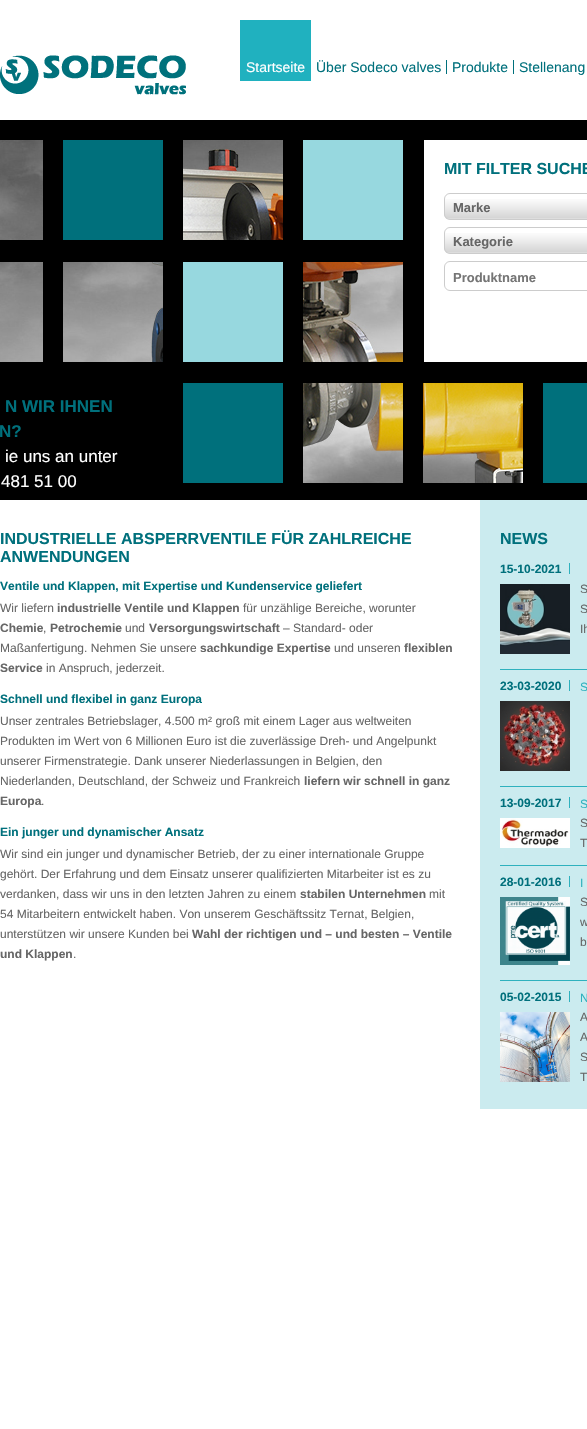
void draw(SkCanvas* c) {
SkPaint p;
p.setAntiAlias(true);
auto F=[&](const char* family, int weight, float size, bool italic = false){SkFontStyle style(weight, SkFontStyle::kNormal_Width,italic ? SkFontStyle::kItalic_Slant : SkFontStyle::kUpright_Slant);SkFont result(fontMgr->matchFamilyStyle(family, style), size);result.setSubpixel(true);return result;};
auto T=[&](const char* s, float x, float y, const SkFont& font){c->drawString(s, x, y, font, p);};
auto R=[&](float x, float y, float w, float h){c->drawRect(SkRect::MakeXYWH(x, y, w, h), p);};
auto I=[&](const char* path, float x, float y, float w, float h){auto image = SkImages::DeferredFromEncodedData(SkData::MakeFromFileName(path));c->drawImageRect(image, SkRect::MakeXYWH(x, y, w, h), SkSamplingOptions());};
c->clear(0xffffffff);
I("1.png",0,55,186,40);
p.setColor(0xff20b1bf);
R(240,20,71,61);
auto f1 = F("Liberation Sans",400,14);
p.setColor(0xffffffff);
T("Startseite",246,72,f1);
p.setColor(0xff00707c);
R(446,60,1,14);
T("Über Sodeco valves",316,72,f1);
R(513,60,1,14);
T("Produkte",452,72,f1);
T("Stellenang",519,72,f1);
p.setColor(0xff000000);
R(0,120,587,20);
I("2.png",0,140,523,343);
I("3.png",0,140,587,360);
p.setColor(0xffffffff);
R(424,140,163,222);
auto f2 = F("Liberation Sans",700,16);
p.setColor(0xff00707c);
T("MIT FILTER SUCHE",444,174,f2);
I("4.png",444,199,143,20);
p.setStroke(true);
p.setStrokeWidth(1);
p.setColor(0xffcccccc);
c->drawRoundRect(SkRect::MakeXYWH(444.5,193.5,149,26),5.5,5.5,p);
auto f3 = F("Liberation Sans",700,13);
p.setStroke(false);
p.setColor(0xff666666);
T("Marke",453,212,f3);
I("4.png",444,233,143,20);
p.setStroke(true);
p.setColor(0xffcccccc);
c->drawRoundRect(SkRect::MakeXYWH(444.5,227.5,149,26),5.5,5.5,p);
p.setStroke(false);
p.setColor(0xff666666);
T("Kategorie",453,246,f3);
p.setStroke(true);
p.setColor(0xffcccccc);
c->drawRoundRect(SkRect::MakeXYWH(444.5,261.5,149,29),5.5,5.5,p);
p.setStroke(false);
p.setColor(0xff757575);
T("Produktname",453,282,f3);
auto f4 = F("Liberation Sans",700,17);
p.setColor(0xff00707c);
T("N WIR IHNEN",5,412,f4);
T("N?",-1,437,f4);
auto f5 = F("Liberation Sans",400,17);
p.setColor(0xffffffff);
T("ie uns an unter",5,462,f5);
T("481 51 00",1,487,f5);
p.setColor(0xff00707c);
T("INDUSTRIELLE ABSPERRVENTILE FÜR ZAHLREICHE",0,544,f2);
T("ANWENDUNGEN",0,562,f2);
auto f6 = F("Liberation Sans",700,12);
T("Ventile und Klappen, mit Expertise und Kundenservice geliefert",0,590,f6);
auto f7 = F("Liberation Sans",400,12);
p.setColor(0xff666666);
T("Wir liefern",0,612,f7);
T("industrielle Ventile und Klappen",57,612,f6);
T("für unzählige Bereiche, worunter",243,612,f7);
T("Chemie",0,632,f6);
T(",",43,632,f7);
T("Petrochemie",50,632,f6);
T("und",125,632,f7);
T("Versorgungswirtschaft",149,632,f6);
T("– Standard- oder",283,632,f7);
T("Maßanfertigung. Nehmen Sie unsere",0,652,f7);
T("sachkundige Expertise",200,652,f6);
T("und unseren",334,652,f7);
T("flexiblen",404,652,f6);
T("Service",0,672,f6);
T("in Anspruch, jederzeit.",46,672,f7);
p.setColor(0xff00707c);
T("Schnell und flexibel in ganz Europa",0,703,f6);
p.setColor(0xff666666);
T("Unser zentrales Betriebslager, 4.500 m² groß mit einem Lager aus weltweiten",0,725,f7);
T("Produkten im Wert von 6 Millionen Euro ist die zuverlässige Dreh- und Angelpunkt",0,745,f7);
T("unserer Firmenstrategie. Dank unserer Niederlassungen in Belgien, den",0,765,f7);
T("Niederlanden, Deutschland, der Schweiz und Frankreich",0,785,f7);
T("liefern wir schnell in ganz",304,785,f6);
T("Europa",0,805,f6);
T(".",41,805,f7);
p.setColor(0xff00707c);
T("Ein junger und dynamischer Ansatz",0,836,f6);
p.setColor(0xff666666);
T("Wir sind ein junger und dynamischer Betrieb, der zu einer internationale Gruppe",0,858,f7);
T("gehört. Der Erfahrung und dem Einsatz unserer qualifizierten Mitarbeiter ist es zu",0,878,f7);
T("verdanken, dass wir uns in den letzten Jahren zu einem",0,898,f7);
T("stabilen Unternehmen",300,898,f6);
T("mit",429,898,f7);
T("54 Mitarbeitern entwickelt haben. Von unserem Geschäftssitz Ternat, Belgien,",0,918,f7);
T("unterstützen wir unsere Kunden bei",0,938,f7);
T("Wahl der richtigen und – und besten – Ventile",192,938,f6);
T("und Klappen",0,958,f6);
T(".",73,958,f7);
p.setColor(0xffcbebef);
R(480,500,107,609);
p.setColor(0xff00707c);
T("NEWS",500,544,f2);
p.setColor(0xff2fb1be);
R(500,669,87,1);
R(569,563,1,11);
p.setColor(0xff00707c);
T("15-10-2021",500,573,f6);
I("5.png",500,584,70,70);
p.setColor(0xff666666);
T("S",580,593,f7);
T("S",580,613,f7);
T("Ih",580,633,f7);
p.setColor(0xff2fb1be);
R(500,786,87,1);
R(569,680,1,11);
p.setColor(0xff00707c);
T("23-03-2020",500,690,f6);
p.setColor(0xff2fb1be);
T("S",580,691,f7);
I("6.png",500,701,70,70);
R(500,865,87,1);
R(569,797,1,11);
p.setColor(0xff00707c);
T("13-09-2017",500,807,f6);
p.setColor(0xff2fb1be);
T("S",580,808,f7);
I("7.png",500,818,70,30);
p.setColor(0xff666666);
T("S",580,827,f7);
T("T",580,847,f7);
p.setColor(0xff2fb1be);
R(500,980,87,1);
R(569,876,1,11);
p.setColor(0xff00707c);
T("28-01-2016",500,886,f6);
p.setColor(0xff2fb1be);
T("I",580,887,f7);
I("8.png",500,897,70,68);
p.setColor(0xff666666);
T("S",580,906,f7);
T("w",580,926,f7);
T("b",580,946,f7);
p.setColor(0xff2fb1be);
R(569,991,1,11);
p.setColor(0xff00707c);
T("05-02-2015",500,1001,f6);
p.setColor(0xff2fb1be);
T("N",580,1002,f7);
I("9.png",500,1012,70,70);
p.setColor(0xff666666);
T("A",580,1021,f7);
T("A",580,1041,f7);
T("S",580,1061,f7);
T("T",580,1081,f7);
}
